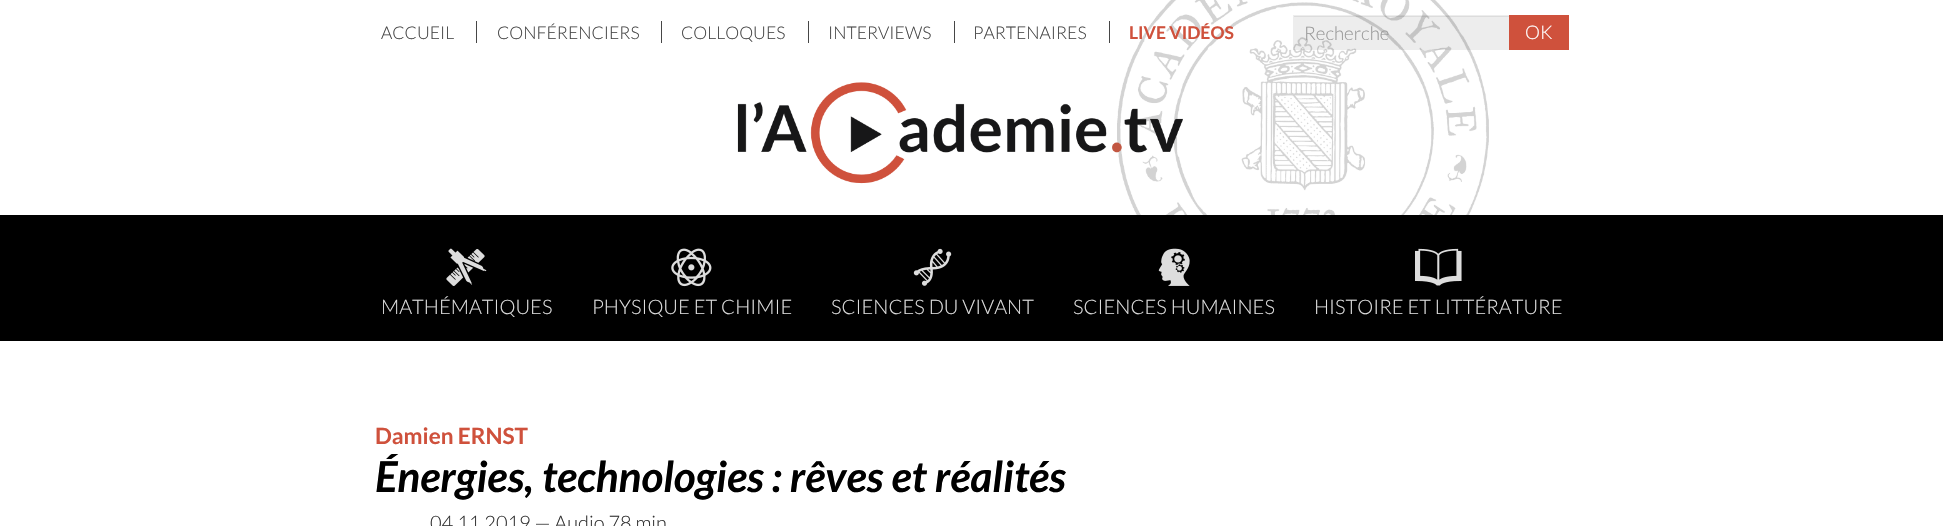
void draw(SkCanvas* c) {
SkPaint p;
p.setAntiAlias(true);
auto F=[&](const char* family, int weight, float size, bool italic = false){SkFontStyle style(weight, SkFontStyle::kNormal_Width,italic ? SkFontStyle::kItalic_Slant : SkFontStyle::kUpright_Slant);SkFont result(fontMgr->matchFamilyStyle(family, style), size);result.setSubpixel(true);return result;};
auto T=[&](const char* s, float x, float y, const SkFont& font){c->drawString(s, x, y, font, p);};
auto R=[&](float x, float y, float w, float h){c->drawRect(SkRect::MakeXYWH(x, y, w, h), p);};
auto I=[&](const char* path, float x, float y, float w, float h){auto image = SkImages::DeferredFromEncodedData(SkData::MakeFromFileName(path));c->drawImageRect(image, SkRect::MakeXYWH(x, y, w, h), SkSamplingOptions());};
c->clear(0xffffffff);
I("1.png",1117,0,372,215);
I("2.png",737,82,446,102);
auto f1 = F("Lato",300,17.5);
p.setColor(0xff464646);
T("ACCUEIL",381,39,f1);
R(476,21,1,22);
T("CONFÉRENCIERS",497,39,f1);
R(661,21,1,22);
T("COLLOQUES",681,39,f1);
R(808,21,1,22);
T("INTERVIEWS",828,39,f1);
R(954,21,1,22);
T("PARTENAIRES",973,39,f1);
R(1109,21,1,22);
auto f2 = F("Lato",700,17.5);
p.setColor(0xffcf513c);
T("LIVE VIDÉOS",1129,39,f2);
p.setColor(0x12000000);
R(1293,15,216,35);
R(1294,16,215,1);
auto f3 = F("Lato",300,18.75);
p.setColor(0xff999999);
T("Recherche",1304,40,f3);
p.setColor(0xffcf513c);
R(1509,15,60,35);
p.setColor(0xffffffff);
T("OK",1525,39,f3);
p.setColor(0xff000000);
R(0,215,1943,126);
I("3.png",446,248,41,38);
auto f4 = F("Lato",300,20);
p.setColor(0xffdddddd);
T("MATHÉMATIQUES",381,314,f4);
I("4.png",671,248,41,39);
T("PHYSIQUE ET CHIMIE",592,314,f4);
I("5.png",913,248,39,38);
T("SCIENCES DU VIVANT",831,314,f4);
I("6.png",1158,248,32,38);
T("SCIENCES HUMAINES",1073,314,f4);
I("7.png",1415,248,47,38);
T("HISTOIRE ET LITTÉRATURE",1314,314,f4);
auto f5 = F("Lato",700,22.5);
p.setColor(0xffcf513c);
T("Damien ERNST",375,444,f5);
auto f6 = F("Lato",700,42.5,true);
p.setColor(0xff000000);
T("Énergies, technologies : rêves et réalités",375,492,f6);
p.setColor(0xff333333);
T("04.11.2019 — Audio 78 min",430,530,f4);
}
